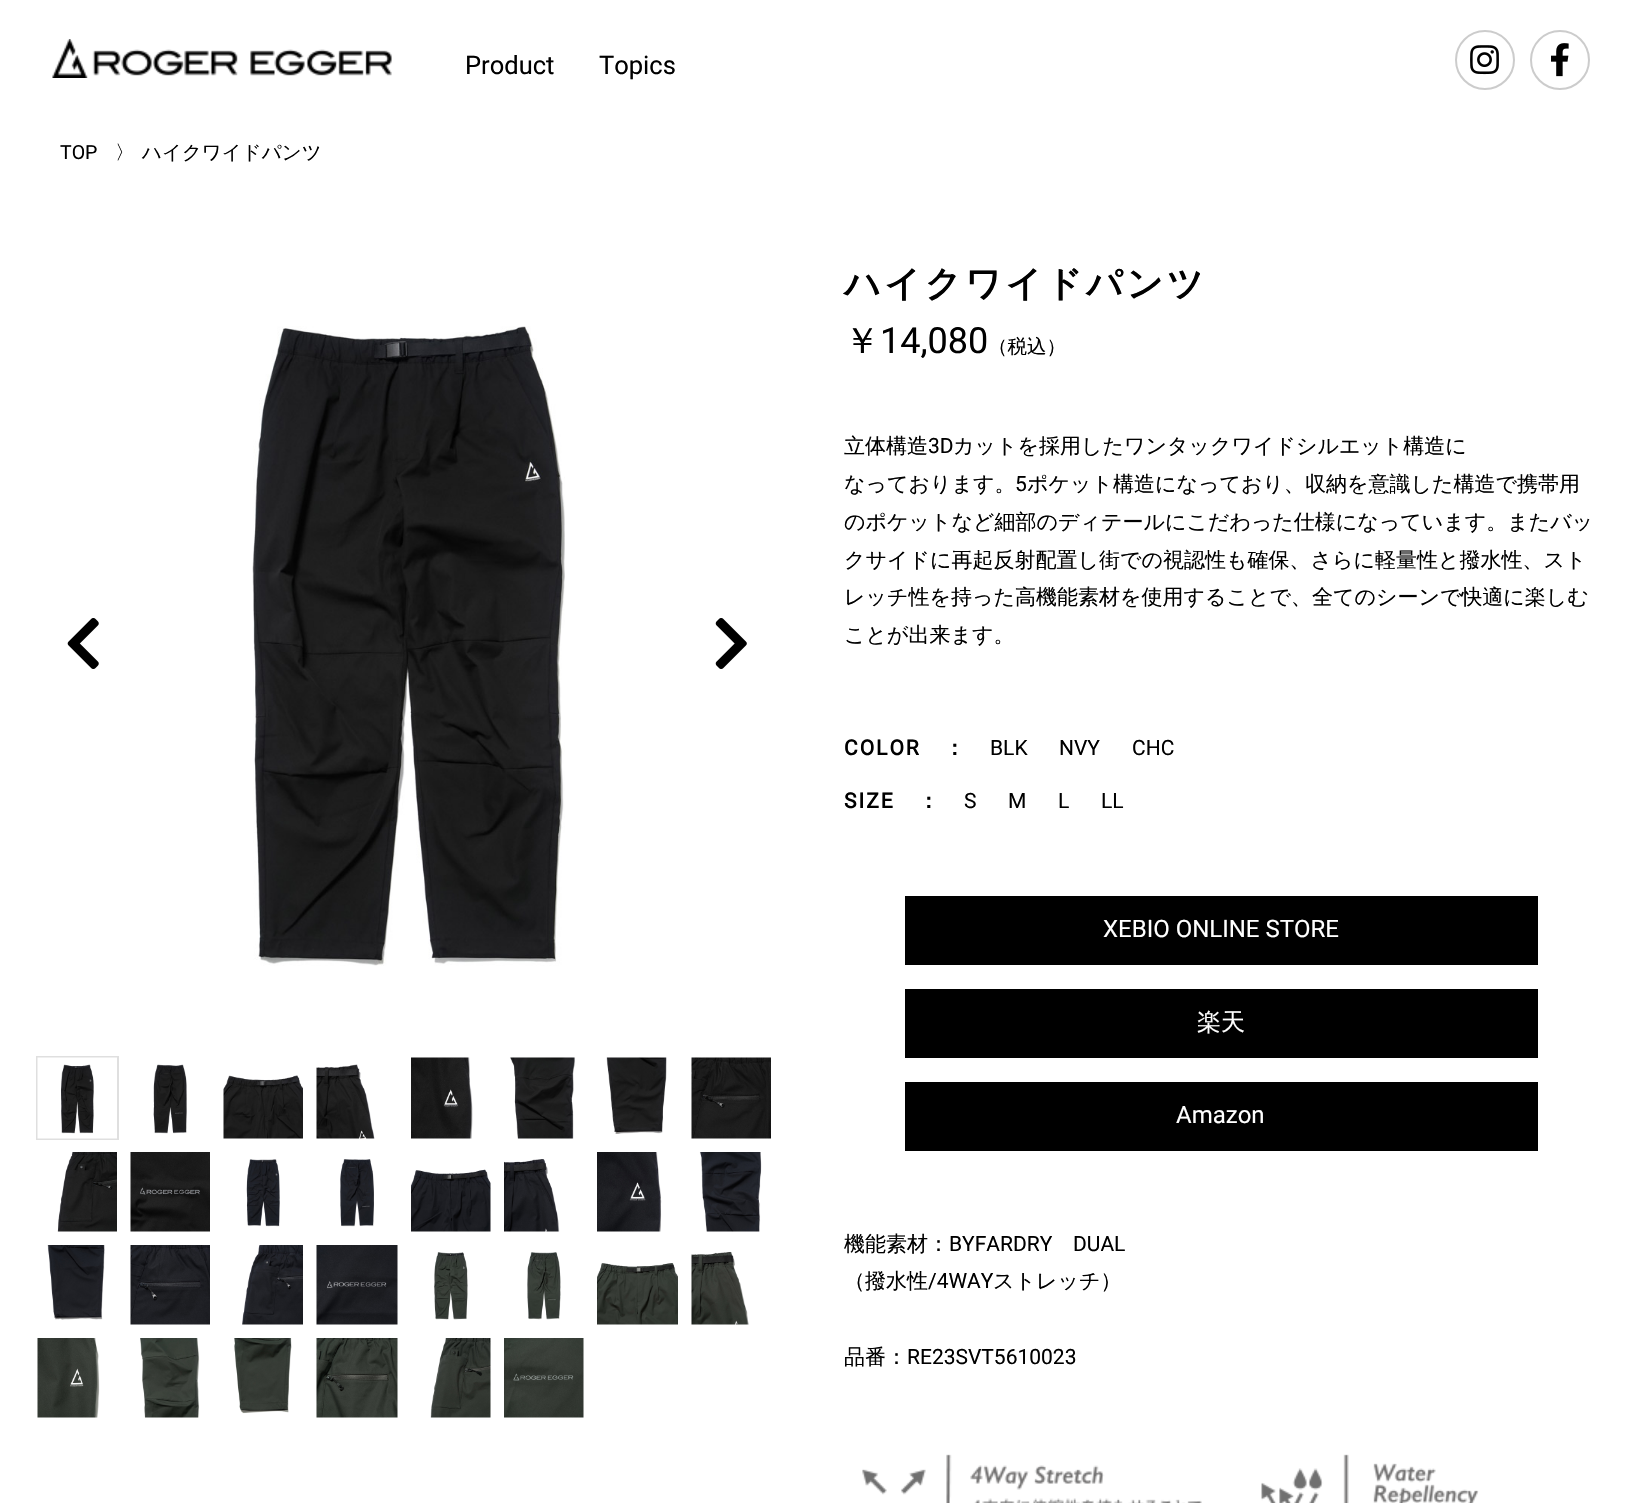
void draw(SkCanvas* c) {
SkPaint p;
p.setAntiAlias(true);
auto F=[&](const char* family, int weight, float size, bool italic = false){SkFontStyle style(weight, SkFontStyle::kNormal_Width,italic ? SkFontStyle::kItalic_Slant : SkFontStyle::kUpright_Slant);SkFont result(fontMgr->matchFamilyStyle(family, style), size);result.setSubpixel(true);return result;};
auto T=[&](const char* s, float x, float y, const SkFont& font){c->drawString(s, x, y, font, p);};
auto L=[&](const char* s, float x, float y, const SkFont& font, const SkPaint& ink, float letter, float word){std::vector<SkGlyphID> glyphs(font.countText(s, strlen(s), SkTextEncoding::kUTF8));std::vector<float> xs(glyphs.size());font.textToGlyphs(s, strlen(s), SkTextEncoding::kUTF8, glyphs);font.getXPos(glyphs, xs, x);float extra = 0;for (size_t i = 0; i < glyphs.size(); i++) {xs[i] += extra;extra += letter + word * (glyphs[i] == font.unicharToGlyph(' '));}c->drawTextBlob(SkTextBlob::MakeFromPosHGlyphs(glyphs, xs, y, font), 0, 0, ink);};
auto R=[&](float x, float y, float w, float h){c->drawRect(SkRect::MakeXYWH(x, y, w, h), p);};
auto I=[&](const char* path, float x, float y, float w, float h){auto image = SkImages::DeferredFromEncodedData(SkData::MakeFromFileName(path));c->drawImageRect(image, SkRect::MakeXYWH(x, y, w, h), SkSamplingOptions());};
c->clear(0xffffffff);
I("1.png",52,39,340,39);
auto f1 = F("Roboto",400,25.5);
p.setColor(0xff000000);
T("Product",465,74,f1);
T("Topics",599,74,f1);
p.setStroke(true);
p.setStrokeWidth(2);
p.setColor(0xffcccccc);
c->drawCircle(1485,60,29,p);
I("2.png",1470,45,29,30);
c->drawCircle(1560,60,29,p);
I("3.png",1551,43,18,34);
auto f2 = F("Roboto",400,19.5);
p.setStroke(false);
p.setColor(0xff000000);
T("TOP",60,159,f2);
auto f3 = F("WenQuanYi Zen Hei",500,19.5);
T("〉",115,159,f3);
T("ハイクワイドパンツ",142,159,f3);
I("4.png",67,618,32,51);
I("5.png",252,326,313,640);
I("6.png",715,618,32,51);
p.setStroke(true);
p.setColor(0xffdfdfdf);
c->drawRect(SkRect::MakeXYWH(37,1057,81,82),p);
I("7.png",37,1057,80,82);
I("8.png",131,1058,79,80);
I("9.png",223,1058,80,81);
I("10.png",316,1058,81,81);
I("11.png",411,1057,79,82);
I("12.png",505,1057,78,82);
I("13.png",598,1057,80,81);
I("14.png",691,1057,80,82);
I("15.png",38,1152,79,80);
I("16.png",130,1152,80,80);
I("17.png",224,1153,79,78);
I("18.png",317,1153,80,78);
I("19.png",411,1153,80,79);
I("20.png",504,1153,79,79);
I("21.png",597,1152,81,80);
I("22.png",692,1152,79,80);
I("23.png",38,1245,79,79);
I("24.png",130,1245,80,80);
I("25.png",224,1245,79,80);
I("26.png",316,1245,82,80);
I("27.png",412,1246,78,78);
I("28.png",505,1246,78,78);
I("29.png",597,1246,81,79);
I("30.png",691,1246,80,79);
I("31.png",37,1338,80,80);
I("32.png",131,1338,79,80);
I("33.png",224,1338,79,79);
I("34.png",316,1338,82,80);
I("35.png",412,1338,79,80);
I("36.png",504,1338,80,80);
auto f4 = F("WenQuanYi Zen Hei",700,36);
p.setStroke(false);
p.setColor(0xff000000);
L("ハイクワイドパンツ",844,296,f4,p,3.5,0);
auto f5 = F("WenQuanYi Zen Hei",500,36);
T("￥",844,353,f5);
auto f6 = F("Roboto",400,36);
T("14,080",880,353,f6);
T("（税込）",988,353,f3);
auto f7 = F("WenQuanYi Zen Hei",500,21);
T("立体構造",844,453,f7);
auto f8 = F("Roboto",400,21);
T("3D",928,453,f8);
T("カットを採用したワンタックワイドシルエット構造に",953,453,f7);
T("なっております。",844,491,f7);
T("5",1015,491,f8);
T("ポケット構造になっており、収納を意識した構造で携帯用",1027,491,f7);
T("のポケットなど細部のディテールにこだわった仕様になっています。またバッ",844,529,f7);
T("クサイドに再起反射配置し街での視認性も確保、さらに軽量性と撥水性、スト",844,567,f7);
T("レッチ性を持った高機能素材を使用することで、全てのシーンで快適に楽しむ",844,604,f7);
T("ことが出来ます。",844,642,f7);
auto f9 = F("Roboto",700,21);
L("COLOR",844,755,f9,p,2,0);
auto f10 = F("WenQuanYi Zen Hei",700,21);
L("：",944,755,f10,p,2,0);
T("BLK",990,755,f8);
T("NVY",1059,755,f8);
T("CHC",1132,755,f8);
L("SIZE",844,808,f9,p,2,0);
L("：",918,808,f10,p,2,0);
T("S",964,808,f8);
T("M",1008,808,f8);
T("L",1058,808,f8);
T("LL",1101,808,f8);
R(905,896,633,69);
auto f11 = F("Roboto",400,24);
p.setColor(0xffffffff);
T("XEBIO ONLINE STORE",1103,937,f11);
p.setColor(0xff000000);
R(905,989,633,69);
auto f12 = F("WenQuanYi Zen Hei",500,24);
p.setColor(0xffffffff);
T("楽天",1197,1030,f12);
p.setColor(0xff000000);
R(905,1082,633,69);
p.setColor(0xffffffff);
T("Amazon",1176,1123,f11);
p.setColor(0xff000000);
T("機能素材：",844,1251,f7);
T("BYFARDRY",949,1251,f8);
T("DUAL",1073,1251,f8);
T("（撥水性",844,1288,f7);
T("/4WAY",928,1288,f8);
T("ストレッチ）",993,1288,f7);
T("品番：",844,1364,f7);
T("RE23SVT5610023",907,1364,f8);
I("37.png",862,1454,340,49);
I("38.png",1261,1454,218,49);
}
